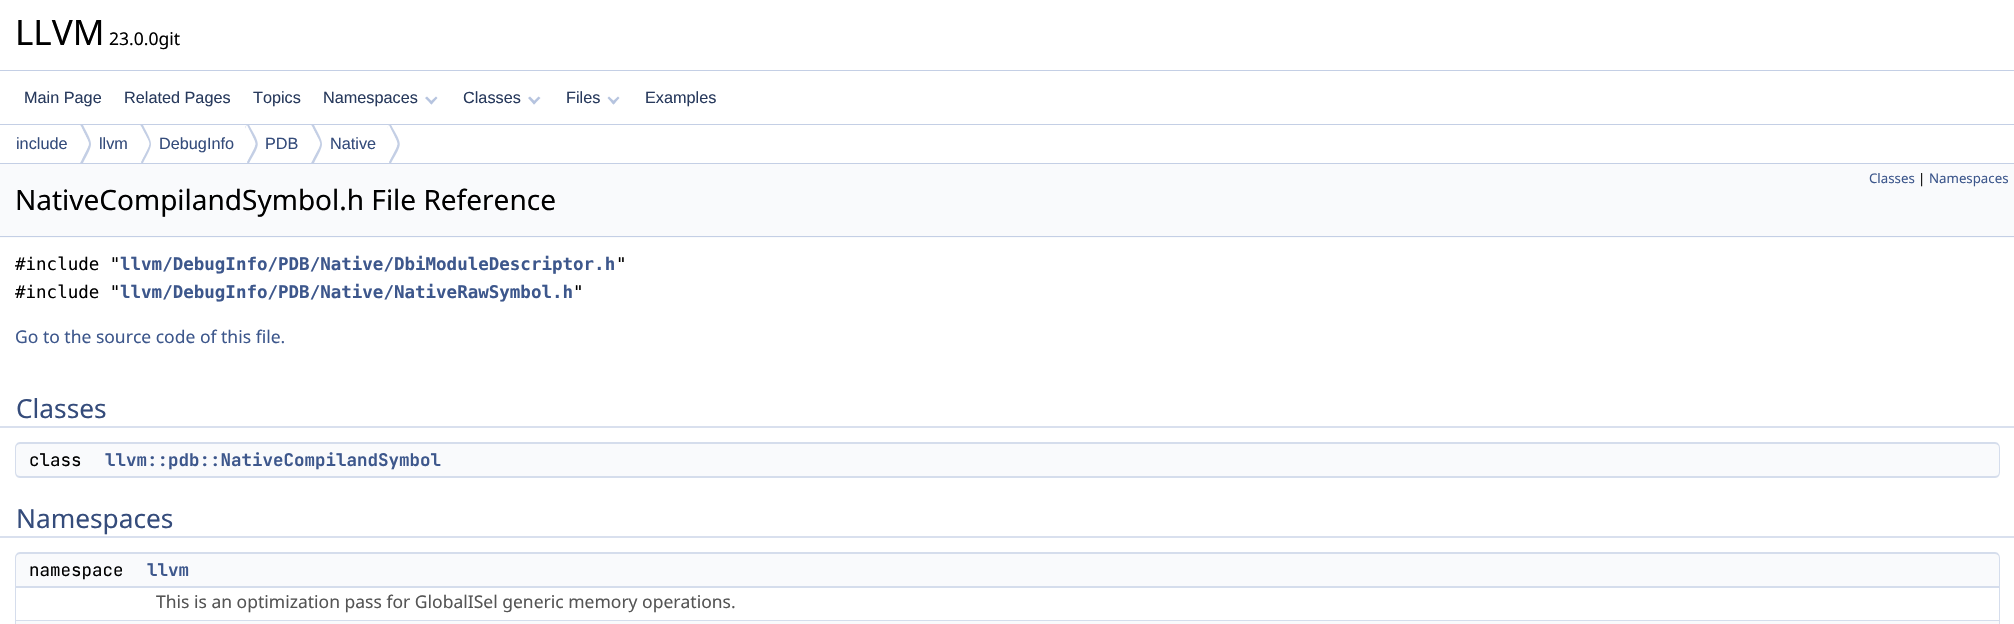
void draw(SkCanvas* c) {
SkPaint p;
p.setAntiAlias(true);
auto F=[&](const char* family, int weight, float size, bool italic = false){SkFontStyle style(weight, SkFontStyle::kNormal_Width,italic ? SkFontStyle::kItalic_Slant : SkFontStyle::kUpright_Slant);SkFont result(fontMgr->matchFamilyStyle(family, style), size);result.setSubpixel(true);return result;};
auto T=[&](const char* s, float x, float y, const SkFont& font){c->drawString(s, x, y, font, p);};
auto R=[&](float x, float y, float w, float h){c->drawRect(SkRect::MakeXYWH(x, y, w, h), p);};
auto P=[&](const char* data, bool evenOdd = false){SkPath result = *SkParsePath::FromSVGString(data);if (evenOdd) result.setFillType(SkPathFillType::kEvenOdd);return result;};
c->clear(0xffffffff);
p.setColor(0xffc4cfe5);
R(0,70,2014,1);
auto f1 = F("Noto Sans",400,35);
p.setColor(0xff000000);
T("LLVM",15,45,f1);
auto f2 = F("Noto Sans",400,17.5);
T("23.0.0git",109,45,f2);
p.setColor(0xffc4cfe5);
R(0,124,2014,1);
auto f3 = F("Liberation Sans",400,16.25);
p.setColor(0xff283a5d);
T("Main Page",24,103,f3);
T("Related Pages",124,103,f3);
T("Topics",253,103,f3);
T("Namespaces",323,103,f3);
p.setColor(0xffb6c4df);
c->drawPath(P("M436 96.5l1.5 1.5l-6 6.5l-2-2z"),p);
c->drawPath(P("M427 96.5l6 6l-1.5 2l-6.5-6.5z"),p);
p.setColor(0xff283a5d);
T("Classes",463,103,f3);
p.setColor(0xffb6c4df);
c->drawPath(P("M538.5 96.5l2 1.5l-6.5 6.5l-1.5-2z"),p);
c->drawPath(P("M530 96.5l6 6l-2 2l-6-6.5z"),p);
p.setColor(0xff283a5d);
T("Files",566,103,f3);
p.setColor(0xffb6c4df);
c->drawPath(P("M618 96.5l1.5 1.5l-6 6.5l-2-2z"),p);
c->drawPath(P("M609 96.5l6.5 6l-2 2l-6-6.5z"),p);
p.setColor(0xff283a5d);
T("Examples",645,103,f3);
p.setColor(0xffc4cfe5);
R(0,163,2014,1);
p.setColor(0xff354c7b);
T("include",16,149,f3);
c->save();
c->clipRect(SkRect::MakeXYWH(0,125,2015,38));
p.setColor(0xffc4cfe5);
c->drawPath(P("M82 123l-2 2c11 22 12 15 0 37l2 3c12-24 12-18 0-42z"),p);
c->restore();
p.setColor(0xffffffff);
c->drawPath(P("M80.5 125l8 17c.5 1 .5 2.5 0 3.5l-8 17c-5.5-10.5-5.5-27 0-37.5z"),p);
p.setColor(0xff354c7b);
T("llvm",99,149,f3);
c->save();
c->clipRect(SkRect::MakeXYWH(0,125,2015,38));
p.setColor(0xffc4cfe5);
c->drawPath(P("M142 123l-2 2c12 22 12 15 1 37l1 3c12-24 12-18 0-42z"),p);
c->restore();
p.setColor(0xffffffff);
c->drawPath(P("M140.5 125l8.5 17c.5 1 .5 2.5 0 3.5l-8.5 17c-5.5-10.5-5.5-27 0-37.5z"),p);
p.setColor(0xff354c7b);
T("DebugInfo",159,149,f3);
c->save();
c->clipRect(SkRect::MakeXYWH(0,125,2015,38));
p.setColor(0xffc4cfe5);
c->drawPath(P("M248 123c-2 2-3 4-3 7l2-5c11 23 11 15 0 37l1 3c13-24 13-18 0-42z"),p);
c->restore();
p.setColor(0xffffffff);
c->drawPath(P("M246.5 125l8.5 17c.5 1 .5 2.5 0 3.5l-8.5 17c-5-10.5-5-27 0-37.5z"),p);
p.setColor(0xff354c7b);
T("PDB",265,149,f3);
c->save();
c->clipRect(SkRect::MakeXYWH(0,125,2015,38));
p.setColor(0xffc4cfe5);
c->drawPath(P("M313 123l-2 2c12 23 12 15 0 37l2 3c12-24 12-18 0-42z"),p);
c->restore();
p.setColor(0xffffffff);
c->drawPath(P("M311.5 125l8 17c1 1 1 2.5 0 3.5l-8 17c-5.5-10.5-5.5-27 0-37.5z"),p);
p.setColor(0xff354c7b);
T("Native",330,149,f3);
c->save();
c->clipRect(SkRect::MakeXYWH(0,125,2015,38));
p.setColor(0xffc4cfe5);
c->drawPath(P("M390 123c-2 2-2 4-3 6l2-4c11 23 11 15 0 37l1 3c13-24 13-18 0-42z"),p);
c->restore();
p.setColor(0xffffffff);
c->drawPath(P("M388.5 125l8.5 17c.5 1 .5 2.5 0 3.5l-8.5 17c-5-10.5-5-27 0-37.5z"),p);
p.setColor(0xfff9fafc);
R(0,164,2014,74);
p.setColor(0xffc4cfe5);
R(0,236,2014,1);
auto f4 = F("Noto Sans",400,13.25);
p.setColor(0xff3d578c);
T("Classes",1869,183,f4);
p.setColor(0xff000000);
T("|",1918,183,f4);
p.setColor(0xff3d578c);
T("Namespaces",1929,183,f4);
auto f5 = F("Noto Sans",400,28);
p.setColor(0xff000000);
T("NativeCompilandSymbol.h File Reference",15,210,f5);
auto f6 = F("DejaVu Sans Mono",400,17.5);
T("#include \"",15,270,f6);
auto f7 = F("DejaVu Sans Mono",700,17.5);
p.setColor(0xff3d578c);
T("llvm/DebugInfo/PDB/Native/DbiModuleDescriptor.h",120,270,f7);
p.setColor(0xff000000);
T("\"",616,270,f6);
T("#include \"",15,298,f6);
p.setColor(0xff3d578c);
T("llvm/DebugInfo/PDB/Native/NativeRawSymbol.h",120,298,f7);
p.setColor(0xff000000);
T("\"",573,298,f6);
p.setColor(0xff3d578c);
T("Go to the source code of this file.",15,343,f2);
p.setColor(0xffd9e0ee);
c->drawPath(P("M0 385v43h1983v-2h-1967v-41z"),p);
c->drawPath(P("M33 426v2h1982v-43h-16v41z"),p);
p.setColor(0xffffffff);
R(0,385,16,41);
R(1999,385,15,41);
auto f8 = F("Noto Sans",400,26.25);
p.setColor(0xff354c7b);
T("Classes",16,418,f8);
p.setColor(0xfff9fafc);
c->drawPath(P("M20 443h84v35h-84c-3 0-5-2-5-5v-25c0-3 2-5 5-5z"),p);
p.setColor(0xffd5ddec);
c->drawPath(P("M20 442h84v36h-84c-3 0-5-3-5-6v-24c0-3 2-6 5-6zm0 2h84v32h-84c-2 0-4-1-4-4v-24c0-3 2-4 4-4z",true),p);
auto f9 = F("JetBrains Mono",400,17.5);
p.setColor(0xff000000);
T("class",29,466,f9);
p.setColor(0xfff9fafc);
c->drawPath(P("M104 443h1891c3 0 5 2 5 5v25c0 3-2 5-5 5h-1891z"),p);
p.setColor(0xffd5ddec);
c->drawPath(P("M104 442h1891c3 0 5 3 5 6v24c0 3-2 6-5 6h-1891zm0 2h1891c2 0 4 1 4 4v24c0 3-2 4-4 4h-1891z",true),p);
auto f10 = F("JetBrains Mono",700,17.5);
p.setColor(0xff3d578c);
T("llvm::pdb::NativeCompilandSymbol",105,466,f10);
p.setColor(0xffd9e0ee);
c->drawPath(P("M0 495v43h1983v-2h-1967v-41z"),p);
c->drawPath(P("M33 536v2h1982v-43h-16v41z"),p);
p.setColor(0xffffffff);
R(0,495,16,41);
R(1999,495,15,41);
p.setColor(0xff354c7b);
T("Namespaces",16,528,f8);
p.setColor(0xfff9fafc);
c->drawPath(P("M20 553h125v35h-130v-30c0-3 2-5 5-5z"),p);
p.setColor(0xffd5ddec);
c->drawPath(P("M20 552h125v36h-130v-30c0-3 2-6 5-6zm0 2h125v32h-129v-28c0-3 2-4 4-4z",true),p);
p.setColor(0xff000000);
T("namespace",29,576,f9);
p.setColor(0xfff9fafc);
c->drawPath(P("M145 553h1850c3 0 5 2 5 5v30h-1855z"),p);
p.setColor(0xffd5ddec);
c->drawPath(P("M145 552h1850c3 0 5 3 5 6v30h-1855zm0 2h1850c2 0 4 1 4 4v28h-1854z",true),p);
p.setColor(0xff3d578c);
T("llvm",147,576,f10);
p.setColor(0xffd5ddec);
R(15,620,130,1);
R(15,588,1,33);
R(1999,588,1,33);
R(145,620,1855,1);
p.setColor(0xff555555);
T("This is an optimization pass for GlobalISel generic memory operations.",156,608,f2);
p.setColor(0xfff9fafc);
R(15,621,1985,3);
p.setColor(0xffd5ddec);
c->drawPath(P("M15 621h130v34h-125c-3 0-5-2-5-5zm1 0h129v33h-125c-2 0-4-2-4-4z",true),p);
c->drawPath(P("M145 621h1855v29c0 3-2 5-5 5h-1850zm0 0h1854v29c0 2-2 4-4 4h-1850z",true),p);
}
